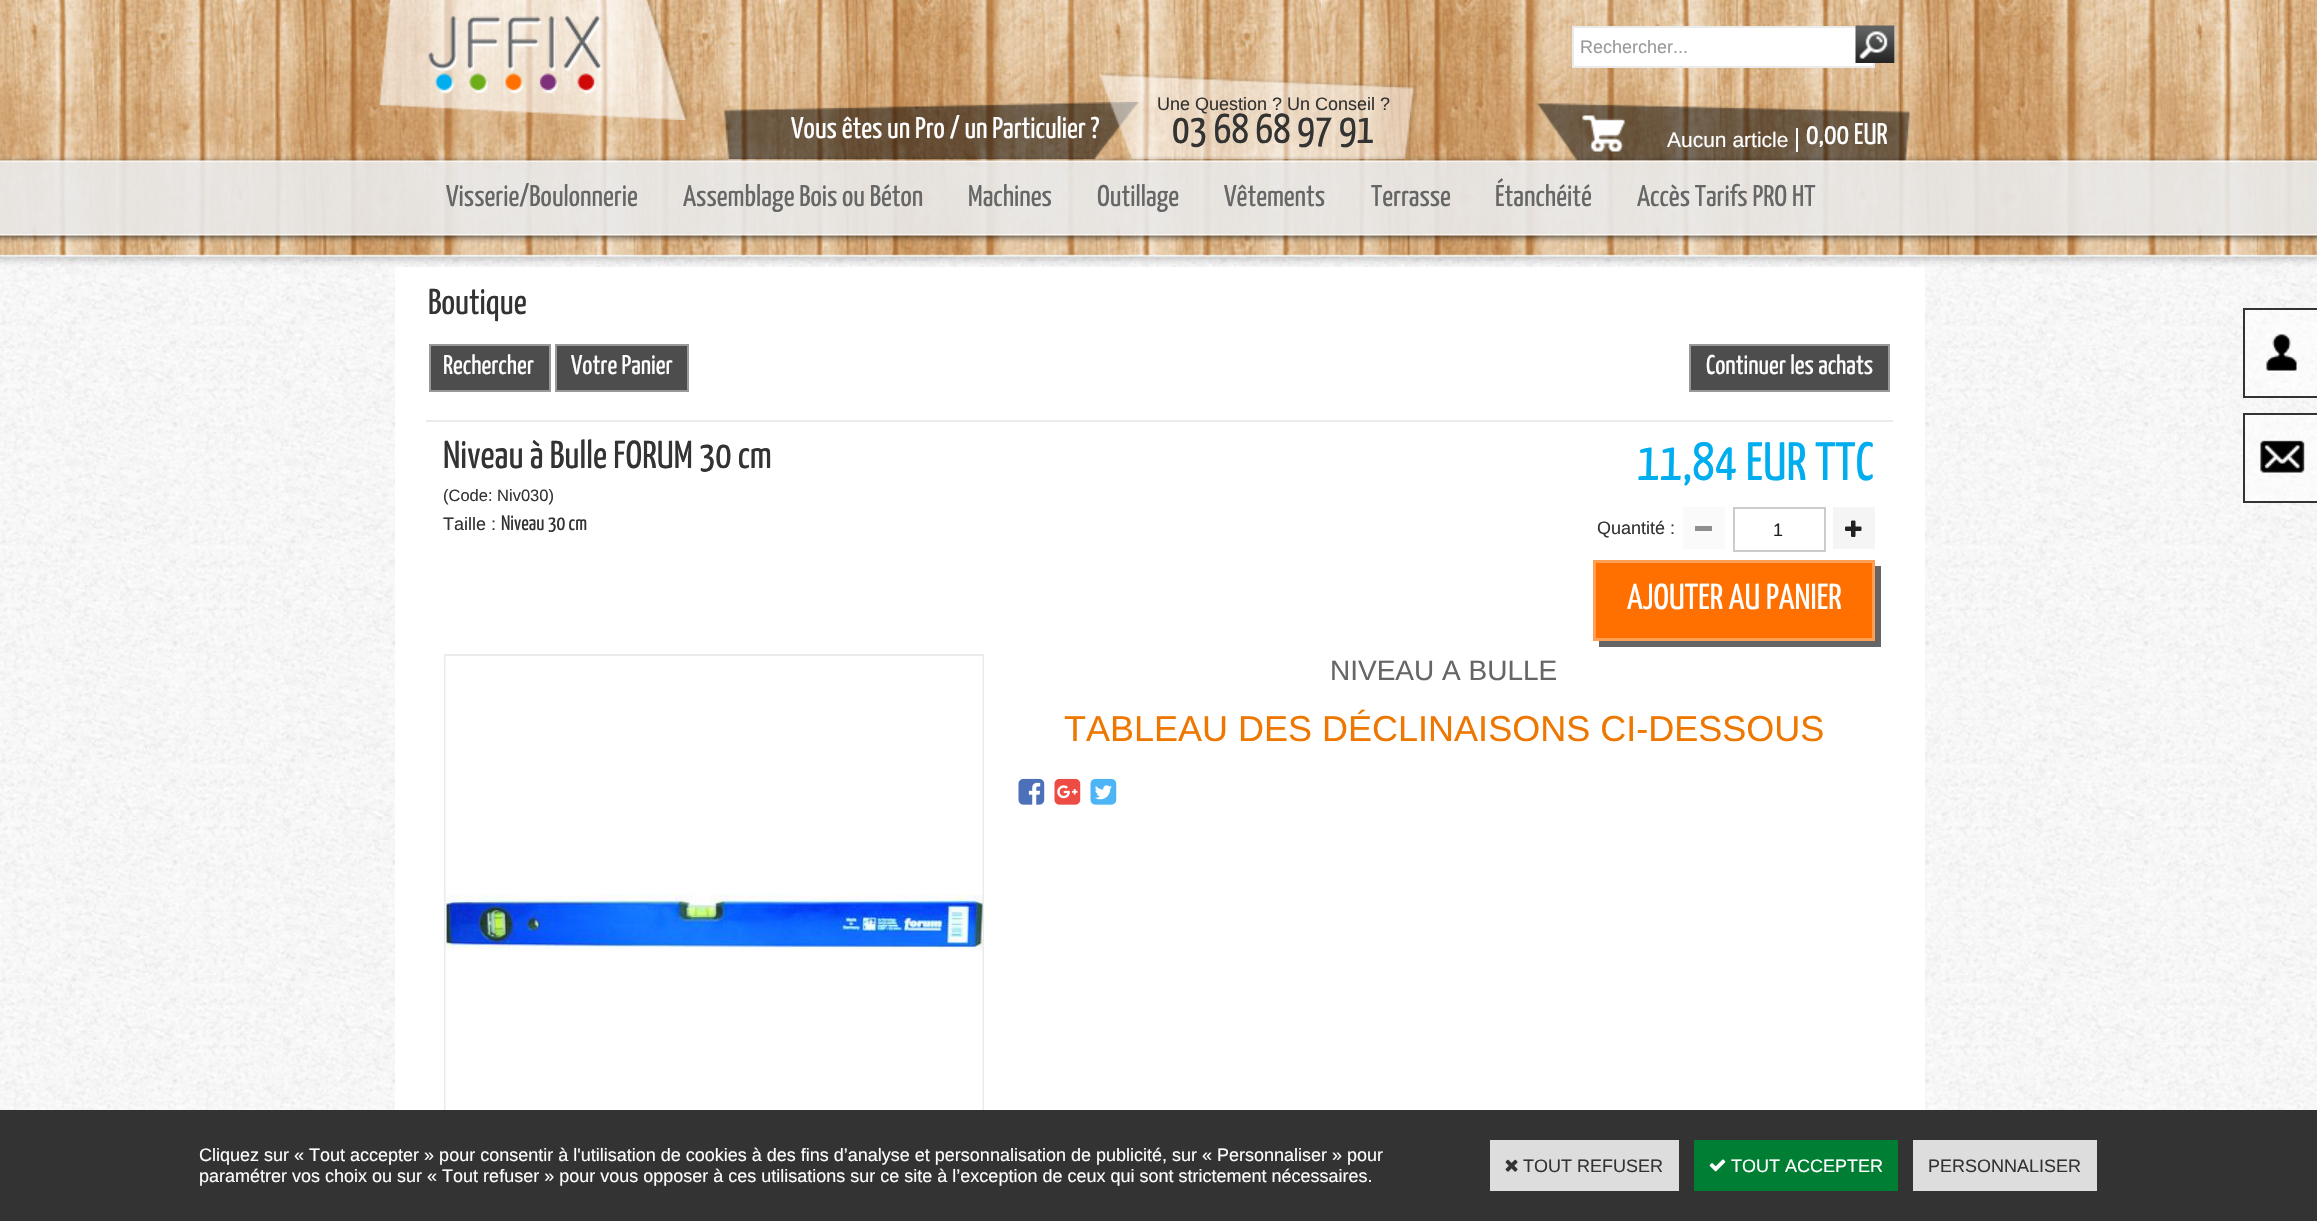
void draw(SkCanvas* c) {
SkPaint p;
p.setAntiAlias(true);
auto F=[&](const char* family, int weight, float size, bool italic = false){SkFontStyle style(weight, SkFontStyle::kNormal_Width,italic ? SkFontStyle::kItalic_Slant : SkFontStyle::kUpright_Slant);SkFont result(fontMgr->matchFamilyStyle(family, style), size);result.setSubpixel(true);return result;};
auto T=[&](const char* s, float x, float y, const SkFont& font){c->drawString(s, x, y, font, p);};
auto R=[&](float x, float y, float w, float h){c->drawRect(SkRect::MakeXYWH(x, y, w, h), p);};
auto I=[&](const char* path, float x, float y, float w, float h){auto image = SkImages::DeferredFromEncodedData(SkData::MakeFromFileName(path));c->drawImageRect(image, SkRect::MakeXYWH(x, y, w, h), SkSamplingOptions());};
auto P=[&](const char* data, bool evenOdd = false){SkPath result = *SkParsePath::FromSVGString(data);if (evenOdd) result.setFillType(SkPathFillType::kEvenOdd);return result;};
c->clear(0xffffffff);
I("1.png",0,0,2317,267);
I("2.png",379,0,310,120);
p.setColor(0xffffffff);
c->drawRect(SkRect::MakeXYWH(1573,27,301,40),p);
p.setStroke(true);
p.setStrokeWidth(2);
p.setColor(0xffebebeb);
c->drawRect(SkRect::MakeXYWH(1573,27,301,40),p);
auto f1 = F("Liberation Sans",400,18);
p.setStroke(false);
p.setColor(0xff999999);
T("Rechercher...",1580,53,f1);
p.setColor(0xfff8f8f8);
R(1894,26,1,37);
I("3.png",1855,25,40,38);
I("4.png",724,102,415,57);
auto f2 = F("Yanone Kaffeesatz",200,30);
p.setColor(0xffffffff);
T("Vous êtes un Pro / un Particulier ?",791,138,f2);
I("5.png",1099,72,318,87);
p.setColor(0xff333333);
T("Une Question ? Un Conseil ?",1157,110,f1);
auto f3 = F("Yanone Kaffeesatz",200,42);
T("03 68 68 97 91",1172,143,f3);
I("6.png",1537,103,373,58);
auto f4 = F("Liberation Sans",400,21);
p.setColor(0xffffffff);
T("Aucun article",1667,147,f4);
R(1796,128,2,24);
T("0,00 EUR",1806,144,f2);
I("10.png",0,267,2317,843);
p.setColor(0x80ffffff);
R(2245,310,72,86);
I("7.png",2266,334,31,37);
p.setStroke(true);
p.setColor(0xff333333);
c->drawRect(SkRect::MakeXYWH(2244,309,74,88),p);
p.setStroke(false);
p.setColor(0x80ffffff);
R(2245,415,72,86);
I("8.png",2260,440,45,33);
p.setStroke(true);
p.setColor(0xff333333);
c->drawRect(SkRect::MakeXYWH(2244,414,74,88),p);
I("9.png",0,156,2317,87);
p.setStroke(false);
p.setColor(0xff666666);
T("Visserie/Boulonnerie",446,206,f2);
T("Assemblage Bois ou Béton",683,206,f2);
T("Machines",968,206,f2);
T("Outillage",1097,206,f2);
T("Vêtements",1224,206,f2);
T("Terrasse",1371,206,f2);
T("Étanchéité",1495,206,f2);
T("Accès Tarifs PRO HT",1637,206,f2);
p.setColor(0xffffffff);
R(395,267,1530,843);
auto f5 = F("Yanone Kaffeesatz",200,36);
p.setColor(0xff333333);
T("Boutique",428,314,f5);
p.setColor(0xff4d4d4d);
c->drawRect(SkRect::MakeXYWH(430,345,120,46),p);
p.setStroke(true);
p.setColor(0xff999999);
c->drawRect(SkRect::MakeXYWH(430,345,120,46),p);
auto f6 = F("Yanone Kaffeesatz",200,27);
p.setStroke(false);
p.setColor(0xffffffff);
T("Rechercher",443,374,f6);
p.setColor(0xff4d4d4d);
c->drawRect(SkRect::MakeXYWH(556,345,132,46),p);
p.setStroke(true);
p.setColor(0xff999999);
c->drawRect(SkRect::MakeXYWH(556,345,132,46),p);
p.setStroke(false);
p.setColor(0xffffffff);
T("Votre Panier",571,374,f6);
p.setColor(0xff4d4d4d);
c->drawRect(SkRect::MakeXYWH(1690,345,199,46),p);
p.setStroke(true);
p.setColor(0xff999999);
c->drawRect(SkRect::MakeXYWH(1690,345,199,46),p);
p.setStroke(false);
p.setColor(0xffffffff);
T("Continuer les achats",1706,374,f6);
p.setColor(0xffebebeb);
R(426,420,1467,2);
auto f7 = F("Yanone Kaffeesatz",200,39);
p.setColor(0xff333333);
T("Niveau à Bulle FORUM 30 cm",443,468,f7);
auto f8 = F("Liberation Sans",400,16.5);
T("(Code: Niv030)",443,501,f8);
T("Taille :",443,530,f1);
auto f9 = F("Yanone Kaffeesatz",200,21);
T("Niveau 30 cm",501,530,f9);
auto f10 = F("Yanone Kaffeesatz",200,54);
p.setColor(0xff00adef);
T("11,84 EUR TTC",1637,480,f10);
p.setColor(0xff333333);
T("Quantité :",1597,534,f1);
p.setColor(0xfffafafa);
R(1683,507,42,42);
p.setColor(0xff8e8e8e);
R(1695,526,17,5);
p.setStroke(true);
p.setColor(0xffcccccc);
c->drawRect(SkRect::MakeXYWH(1734,508,91,43),p);
p.setStroke(false);
p.setColor(0xff212121);
T("1",1773,536,f1);
p.setColor(0xfff5f5f5);
R(1833,507,42,42);
I("11.png",1845,520,17,17);
p.setColor(0xff656565);
c->drawPath(P("M1599 640v7h282v-81h-6v74z"),p);
p.setColor(0xffff7000);
c->drawRect(SkRect::MakeXYWH(1594.5,561.5,279,78),p);
p.setStroke(true);
p.setStrokeWidth(3);
p.setColor(0xffff9f54);
c->drawRect(SkRect::MakeXYWH(1594.5,561.5,279,78),p);
p.setStroke(false);
p.setColor(0xffffffff);
T("AJOUTER AU PANIER",1627,609,f5);
p.setStroke(true);
p.setStrokeWidth(2);
p.setColor(0xffebebeb);
c->drawRect(SkRect::MakeXYWH(445,655,538,541),p);
I("12.png",445,657,538,453);
auto f11 = F("Liberation Sans",400,28);
p.setStroke(false);
p.setColor(0xff666666);
T("NIVEAU A BULLE",1330,680,f11);
auto f12 = F("Liberation Sans",400,36);
p.setColor(0xffed7700);
T("TABLEAU DES DÉCLINAISONS CI-DESSOUS",1064,741,f12);
I("13.png",1018,778,27,27);
I("14.png",1054,778,27,27);
I("15.png",1090,778,27,27);
p.setColor(0xff333333);
R(0,1110,2317,111);
p.setColor(0xffffffff);
T("Cliquez sur « Tout accepter » pour consentir à l'utilisation de cookies à des fins d’analyse et personnalisation de publicité, sur « Personnaliser » pour",199,1161,f1);
T("paramétrer vos choix ou sur « Tout refuser » pour vous opposer à ces utilisations sur ce site à l’exception de ceux qui sont strictement nécessaires.",199,1182,f1);
p.setColor(0xffdddddd);
R(1490,1140,189,51);
I("16.png",1505,1159,13,13);
p.setColor(0xff333333);
T("TOUT REFUSER",1523,1172,f1);
p.setColor(0xff007e33);
R(1694,1140,204,51);
I("17.png",1709,1159,17,13);
p.setColor(0xffffffff);
T("TOUT ACCEPTER",1731,1172,f1);
p.setColor(0xffdddddd);
R(1913,1140,184,51);
p.setColor(0xff333333);
T("PERSONNALISER",1928,1172,f1);
}
